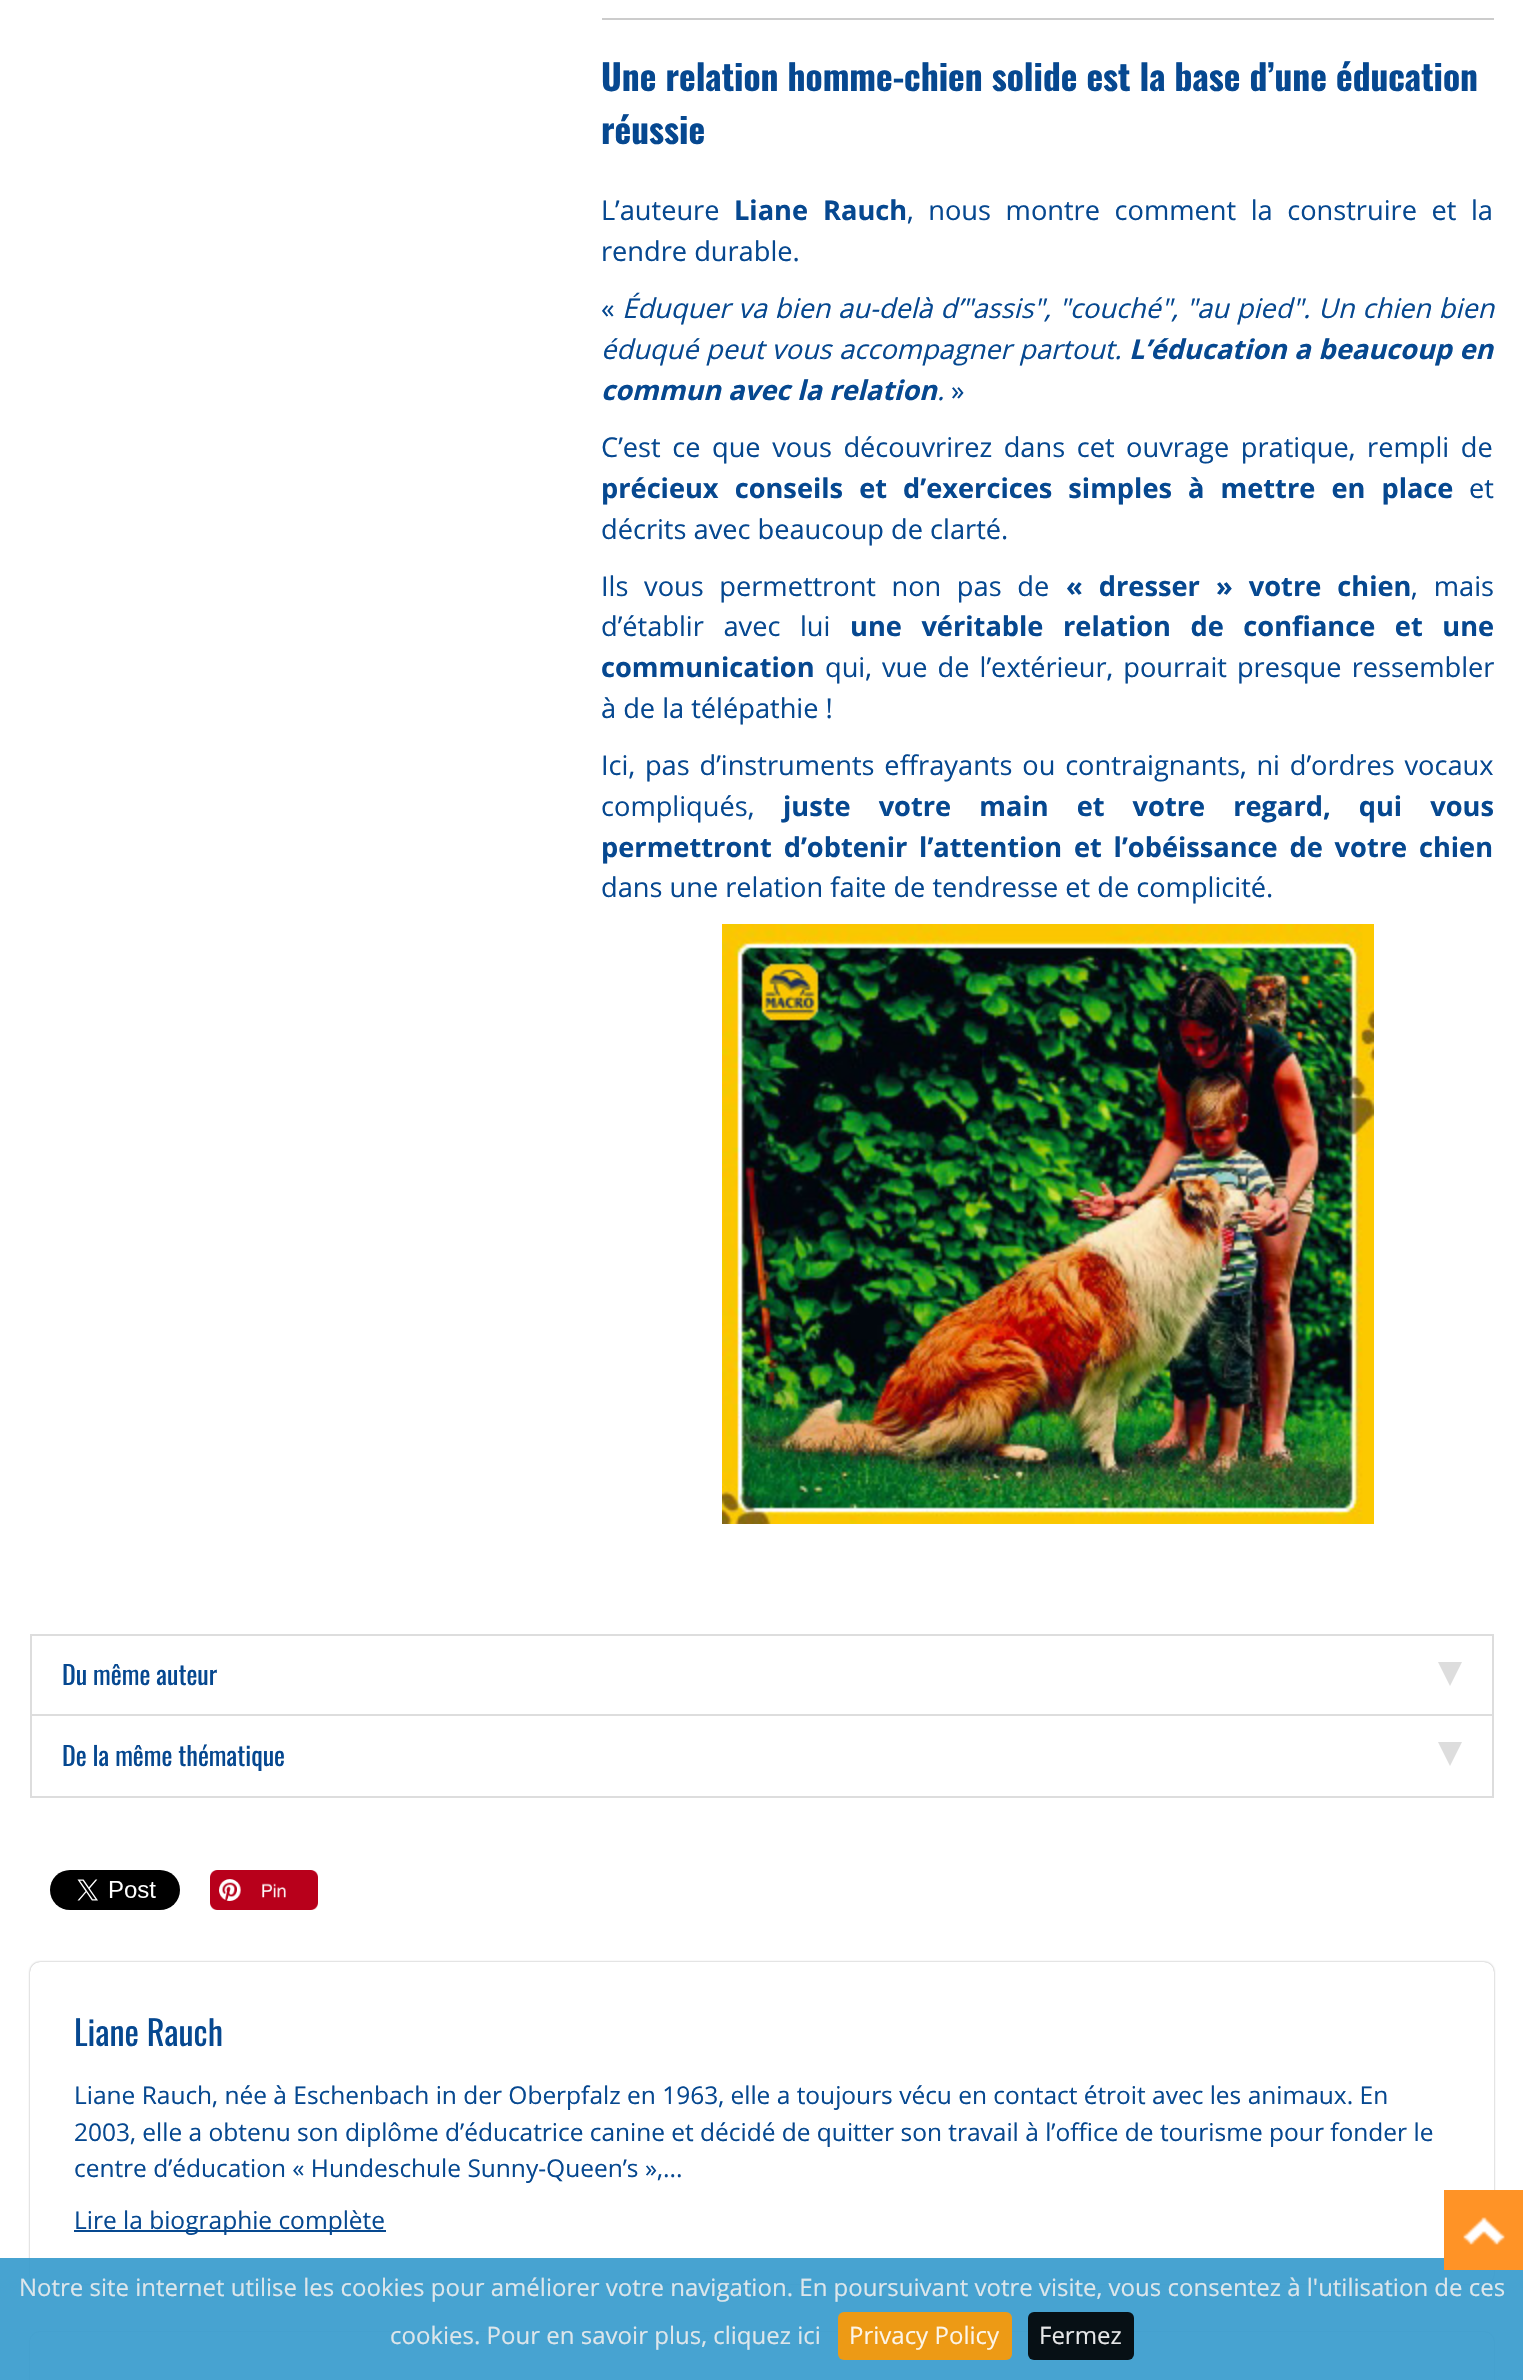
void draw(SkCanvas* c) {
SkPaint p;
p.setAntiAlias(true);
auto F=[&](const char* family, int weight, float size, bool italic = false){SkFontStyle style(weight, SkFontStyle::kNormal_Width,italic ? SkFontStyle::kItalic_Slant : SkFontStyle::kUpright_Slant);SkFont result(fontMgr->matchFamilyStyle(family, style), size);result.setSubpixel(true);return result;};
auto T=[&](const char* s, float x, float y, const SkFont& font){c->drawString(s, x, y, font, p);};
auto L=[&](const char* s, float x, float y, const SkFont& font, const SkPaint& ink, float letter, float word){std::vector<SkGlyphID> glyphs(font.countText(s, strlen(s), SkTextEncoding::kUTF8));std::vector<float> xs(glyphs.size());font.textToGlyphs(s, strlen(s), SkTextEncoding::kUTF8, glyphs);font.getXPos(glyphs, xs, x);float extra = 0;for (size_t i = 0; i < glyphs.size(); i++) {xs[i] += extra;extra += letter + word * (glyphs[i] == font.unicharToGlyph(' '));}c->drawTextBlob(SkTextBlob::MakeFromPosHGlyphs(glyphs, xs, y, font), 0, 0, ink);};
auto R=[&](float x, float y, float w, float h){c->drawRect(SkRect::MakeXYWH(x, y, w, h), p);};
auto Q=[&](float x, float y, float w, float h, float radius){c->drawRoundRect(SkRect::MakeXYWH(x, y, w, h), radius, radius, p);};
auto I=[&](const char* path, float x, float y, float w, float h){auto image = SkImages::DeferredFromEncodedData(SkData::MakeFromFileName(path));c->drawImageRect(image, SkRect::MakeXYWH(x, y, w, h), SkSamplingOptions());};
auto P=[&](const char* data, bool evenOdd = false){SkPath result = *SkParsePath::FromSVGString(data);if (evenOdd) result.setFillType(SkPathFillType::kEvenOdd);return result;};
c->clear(0xffffffff);
p.setColor(0xffcccccc);
R(602,18,892,2);
auto f1 = F("Oswald",700,35.4);
p.setColor(0xff064890);
T("Une relation homme-chien solide est la base d’une éducation",601,91,f1);
T("réussie",601,144,f1);
auto f2 = F("Open Sans",400,27.2);
T("L’auteure",601,220,f2);
auto f3 = F("Open Sans",700,27.2);
L("Liane Rauch",734,220,f3,p,0,8);
L(", nous montre comment la construire et la",907,220,f2,p,0,7.5);
T("rendre durable.",601,261,f2);
T("«",601,318,f2);
auto f4 = F("Open Sans",400,27.2,true);
L("Éduquer va bien au-delà d’\"assis\", \"couché\", \"au pied\". Un chien bien",622,318,f4,p,0,.75);
L("éduqué peut vous accompagner partout.",601,359,f4,p,0,.5);
auto f5 = F("Open Sans",700,27.2,true);
L("L’éducation a beaucoup en",1129,359,f5,p,0,.5);
T("commun avec la relation",601,400,f5);
T(".",937,400,f4);
T("»",951,400,f2);
L("C’est ce que vous découvrirez dans cet ouvrage pratique, rempli de",601,457,f2,p,0,4.5);
L("précieux conseils et d’exercices simples à mettre en place",601,498,f3,p,0,9);
T("et",1469,498,f2);
T("décrits avec beaucoup de clarté.",601,539,f2);
L("Ils vous permettront non pas de",601,596,f2,p,0,8.5);
L("« dresser » votre chien",1066,596,f3,p,0,9);
L(", mais",1411,596,f2,p,0,9);
L("d’établir avec lui",601,636,f2,p,0,12.5);
L("une véritable relation de confiance et une",850,636,f3,p,0,12.5);
T("communication",601,677,f3);
L("qui, vue de l’extérieur, pourrait presque ressembler",825,677,f2,p,0,3);
T("à de la télépathie !",601,718,f2);
L("Ici, pas d’instruments effrayants ou contraignants, ni d’ordres vocaux",601,775,f2,p,0,2.75);
T("compliqués,",601,816,f2);
L("juste votre main et votre regard, qui vous",783,816,f3,p,0,21);
L("permettront d’obtenir l’attention et l’obéissance de votre chien",601,857,f3,p,0,4.75);
T("dans une relation faite de tendresse et de complicité.",601,897,f2);
I("1.png",722,924,652,600);
p.setStroke(true);
p.setStrokeWidth(2);
p.setColor(0xffdddddd);
c->drawRect(SkRect::MakeXYWH(31,1635,1462,80),p);
auto f6 = F("Oswald",400,26);
p.setStroke(false);
p.setColor(0xff064890);
T("Du même auteur",62,1685,f6);
p.setColor(0xffdddddd);
c->drawPath(P("M1438 1662h24l-12 24z"),p);
R(1492,1716,2,82);
R(30,1796,1464,2);
R(30,1716,2,82);
p.setColor(0xff064890);
T("De la même thématique",62,1766,f6);
p.setColor(0xffdddddd);
c->drawPath(P("M1438 1742h24l-12 24z"),p);
I("2.png",50,1870,130,40);
I("3.png",210,1870,108,40);
p.setColor(0xff999999);
p.setMaskFilter(SkMaskFilter::MakeBlur(kNormal_SkBlurStyle, 1));
c->drawRoundRect(SkRect::MakeXYWH(30,1962,1464,322),10,10,p);
p.setMaskFilter(nullptr);
p.setColor(0xffffffff);
Q(30,1962,1464,322,10);
auto f7 = F("Oswald",400,34.25);
p.setColor(0xff064890);
T("Liane Rauch",74,2046,f7);
auto f8 = F("Open Sans",400,24.48);
T("Liane Rauch, née à Eschenbach in der Oberpfalz en 1963, elle a toujours vécu en contact étroit avec les animaux. En",74,2104,f8);
T("2003, elle a obtenu son diplôme d’éducatrice canine et décidé de quitter son travail à l’office de tourisme pour fonder le",74,2141,f8);
T("centre d’éducation « Hundeschule Sunny-Queen’s »,...",74,2177,f8);
R(74,2230,312,2);
T("Lire la biographie complète",74,2229,f8);
c->save();
c->clipPath(P("M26 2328h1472v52h-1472zm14 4h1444c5.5 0 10 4.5 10 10v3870c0 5.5-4.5 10-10 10h-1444c-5.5 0-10-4.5-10-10v-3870c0-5.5 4.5-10 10-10z",true),true);
p.setColor(0xff999999);
p.setMaskFilter(SkMaskFilter::MakeBlur(kNormal_SkBlurStyle, 1));
c->drawRoundRect(SkRect::MakeXYWH(30,2332,1464,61),10,10,p);
p.setMaskFilter(nullptr);
c->restore();
p.setColor(0xe63399cc);
R(0,2258,1523,122);
I("4.png",1444,2190,79,80);
auto f9 = F("Open Sans",400,24);
p.setColor(0xffdde6eb);
T("Notre site internet utilise les cookies pour améliorer votre navigation. En poursuivant votre visite, vous consentez à l'utilisation de ces",19,2296,f9);
T("cookies. Pour en savoir plus, cliquez ici",390,2344,f9);
p.setColor(0xe6ff9900);
Q(838,2312,174,48,6);
p.setColor(0xfffdf5e8);
T("Privacy Policy",849,2344,f9);
p.setColor(0xe6000000);
Q(1028,2312,106,48,6);
p.setColor(0xffe6e7e8);
T("Fermez",1039,2344,f9);
}
